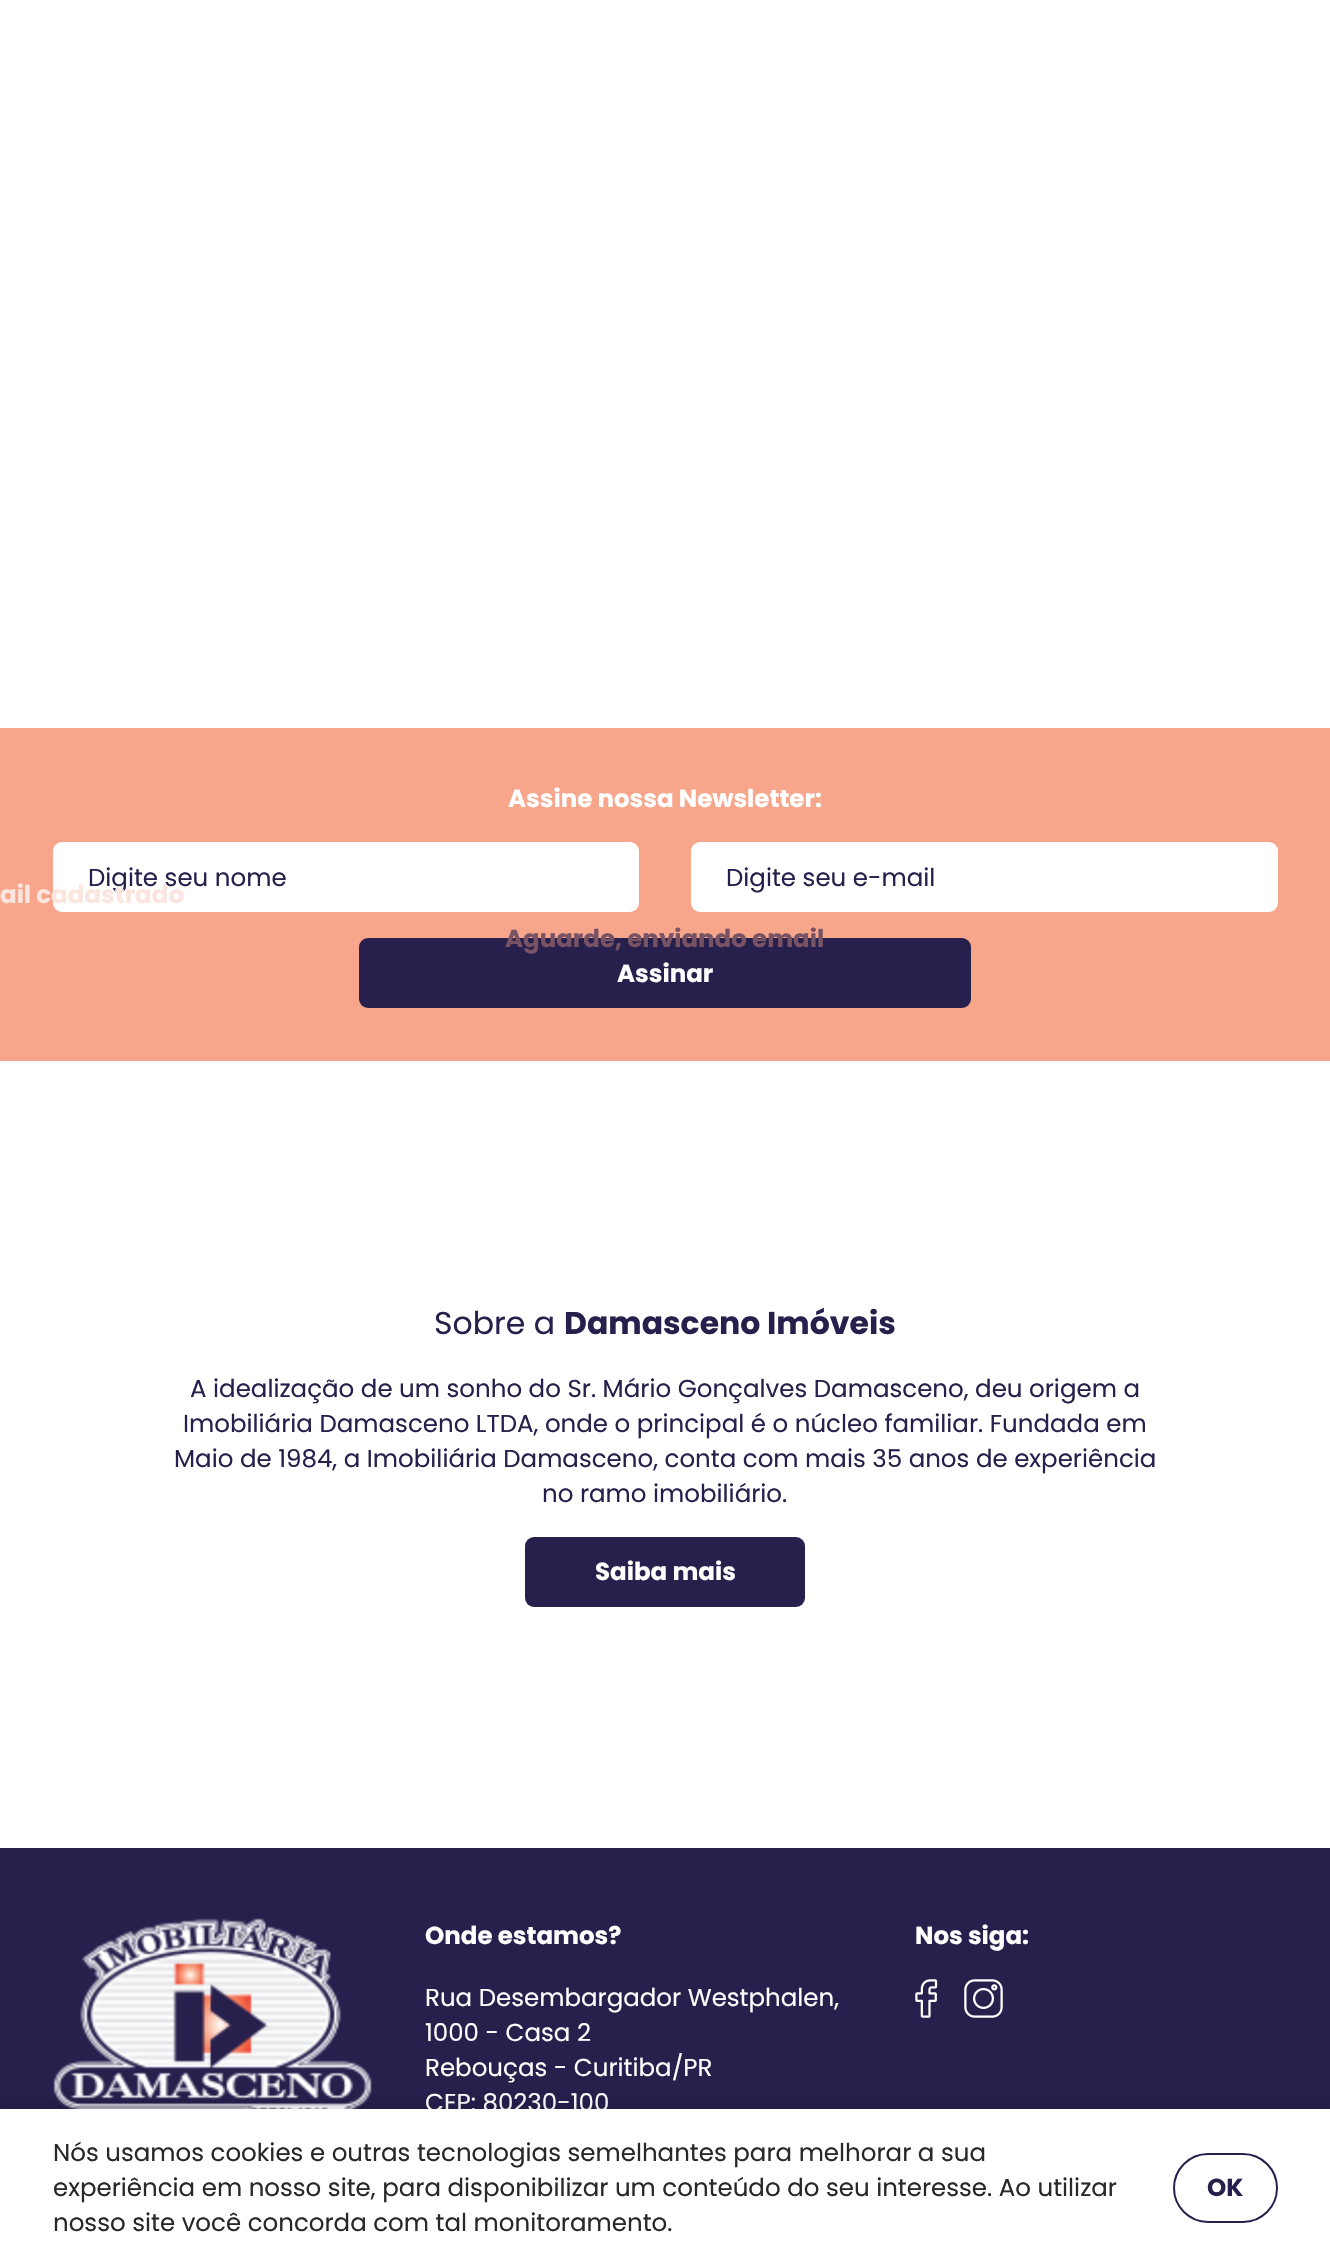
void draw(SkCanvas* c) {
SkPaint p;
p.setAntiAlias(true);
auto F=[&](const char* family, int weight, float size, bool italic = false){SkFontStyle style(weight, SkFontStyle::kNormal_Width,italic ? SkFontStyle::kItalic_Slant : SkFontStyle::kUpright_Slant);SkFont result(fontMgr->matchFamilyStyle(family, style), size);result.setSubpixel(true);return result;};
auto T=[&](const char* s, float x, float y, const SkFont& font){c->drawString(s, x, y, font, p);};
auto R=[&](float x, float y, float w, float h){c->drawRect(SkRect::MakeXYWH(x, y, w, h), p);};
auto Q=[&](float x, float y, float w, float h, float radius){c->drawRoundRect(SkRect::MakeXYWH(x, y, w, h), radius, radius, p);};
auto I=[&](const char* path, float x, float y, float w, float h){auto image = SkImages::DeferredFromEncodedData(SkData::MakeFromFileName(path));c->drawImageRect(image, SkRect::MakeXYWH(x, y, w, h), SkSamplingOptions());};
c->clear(0xffffffff);
p.setColor(0xfff8a68b);
R(0,728,1330,333);
auto f1 = F("Poppins",700,24.5);
p.setColor(0xffffffff);
T("Assine nossa Newsletter:",508,807,f1);
Q(53,842,586,70,9);
auto f2 = F("Poppins",400,24.5);
p.setColor(0xff271f4c);
T("Digite seu nome",88,886,f2);
p.setColor(0xffffffff);
Q(691,842,587,70,9);
p.setColor(0xff271f4c);
T("Digite seu e-mail",726,886,f2);
Q(359,938,612,70,9);
p.setColor(0xffffffff);
T("Assinar",617,982,f1);
p.setColor(0xfffbe5df);
T("ail cadastrado",0,903,f1);
p.setColor(0xff785364);
T("Aguarde, enviando email",505,947,f1);
auto f3 = F("Poppins",400,31.5);
p.setColor(0xff271f4c);
T("Sobre a",434,1334,f3);
auto f4 = F("Poppins",700,31.5);
T("Damasceno Imóveis",564,1334,f4);
T("A idealização de um sonho do Sr. Mário Gonçalves Damasceno, deu origem a",190,1397,f2);
T("Imobiliária Damasceno LTDA, onde o principal é o núcleo familiar. Fundada em",183,1432,f2);
T("Maio de 1984, a Imobiliária Damasceno, conta com mais 35 anos de experiência",174,1467,f2);
T("no ramo imobiliário.",542,1502,f2);
Q(525,1537,280,70,9);
p.setColor(0xffffffff);
T("Saiba mais",595,1580,f1);
p.setColor(0xff271f4c);
R(0,1848,1330,261);
I("1.png",53,1918,319,191);
p.setColor(0xffffffff);
T("Onde estamos?",425,1944,f1);
T("Rua Desembargador Westphalen,",425,2006,f2);
T("1000 - Casa 2",425,2041,f2);
T("Rebouças - Curitiba/PR",425,2076,f2);
T("CEP: 80230-100",425,2111,f2);
T("Nos siga:",915,1944,f1);
I("2.png",915,1979,23,39);
I("3.png",964,1979,39,39);
p.setColor(0x33000000);
p.setMaskFilter(SkMaskFilter::MakeBlur(kNormal_SkBlurStyle, 9));
c->drawRect(SkRect::MakeXYWH(0,2109,1330,157),p);
p.setMaskFilter(nullptr);
p.setColor(0xffffffff);
R(0,2109,1330,157);
p.setColor(0xff282828);
T("Nós usamos cookies e outras tecnologias semelhantes para melhorar a sua",53,2161,f2);
T("experiência em nosso site, para disponibilizar um conteúdo do seu interesse. Ao utilizar",53,2196,f2);
T("nosso site você concorda com tal monitoramento.",53,2231,f2);
p.setStroke(true);
p.setStrokeWidth(2);
p.setColor(0xff271f4c);
c->drawRoundRect(SkRect::MakeXYWH(1174,2154,103,68),34,34,p);
p.setStroke(false);
T("OK",1207,2196,f1);
}
